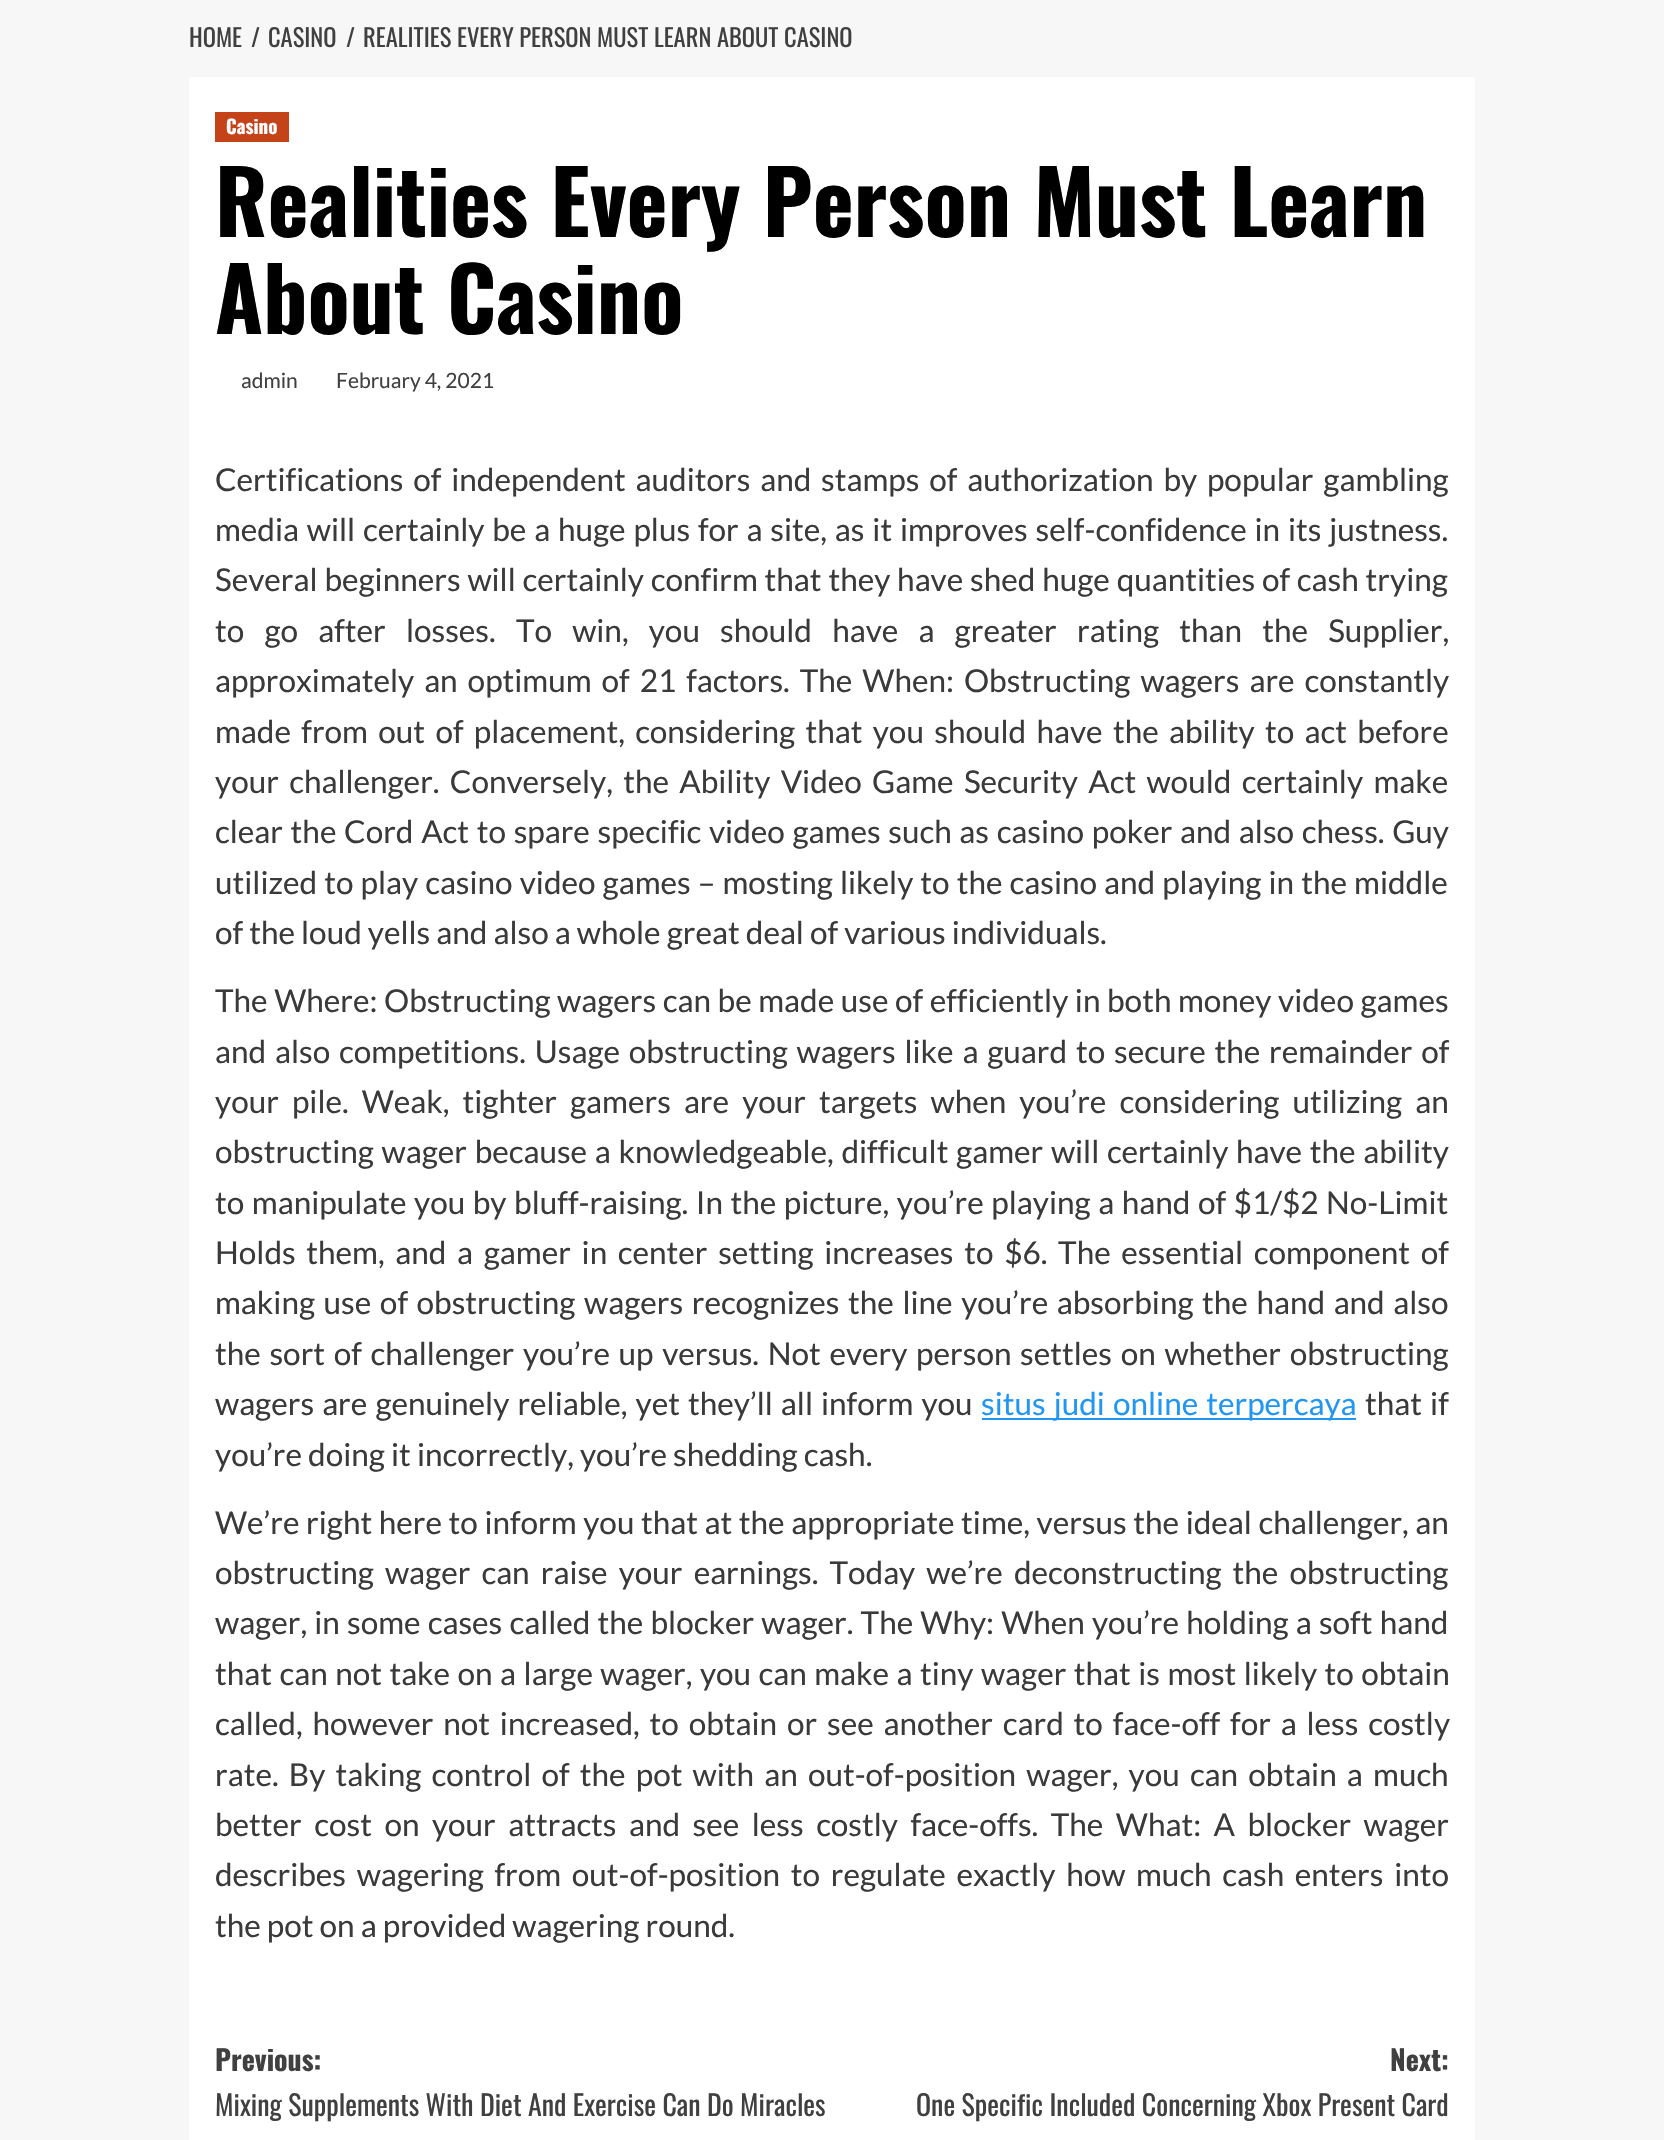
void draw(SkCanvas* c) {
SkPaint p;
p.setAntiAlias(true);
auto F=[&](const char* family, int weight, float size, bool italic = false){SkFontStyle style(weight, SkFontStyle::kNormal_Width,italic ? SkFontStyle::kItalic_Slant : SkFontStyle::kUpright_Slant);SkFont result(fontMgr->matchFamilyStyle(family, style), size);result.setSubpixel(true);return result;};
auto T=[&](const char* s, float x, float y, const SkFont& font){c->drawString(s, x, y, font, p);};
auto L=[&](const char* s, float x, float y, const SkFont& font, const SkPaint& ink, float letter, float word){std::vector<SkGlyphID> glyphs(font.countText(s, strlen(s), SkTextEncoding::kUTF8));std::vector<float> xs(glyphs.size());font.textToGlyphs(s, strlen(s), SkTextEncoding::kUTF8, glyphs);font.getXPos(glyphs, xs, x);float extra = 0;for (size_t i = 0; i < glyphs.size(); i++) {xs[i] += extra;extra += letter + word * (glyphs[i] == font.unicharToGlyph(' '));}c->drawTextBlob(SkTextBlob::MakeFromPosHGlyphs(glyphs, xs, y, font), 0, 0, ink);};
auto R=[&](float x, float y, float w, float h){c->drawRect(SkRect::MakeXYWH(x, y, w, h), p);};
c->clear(0xfff7f7f7);
auto f1 = F("Oswald",400,24.5);
p.setColor(0xff404040);
T("HOME",189,47,f1);
T("/",251,47,f1);
T("CASINO",268,47,f1);
T("/",346,47,f1);
T("REALITIES EVERY PERSON MUST LEARN ABOUT CASINO",363,47,f1);
p.setColor(0xffffffff);
R(189,77,1286,2063);
p.setColor(0xffc44318);
R(215,112,74,30);
auto f2 = F("Oswald",700,19);
p.setColor(0xffffffff);
T("Casino",226,134,f2);
auto f3 = F("Oswald",700,87.5);
p.setColor(0xff000000);
T("Realities Every Person Must Learn",215,237,f3);
T("About Casino",215,334,f3);
auto f4 = F("Lato",400,21);
p.setColor(0xff404040);
T("admin",241,388,f4);
T("February 4, 2021",336,388,f4);
auto f5 = F("Lato",400,31.5);
p.setColor(0xff3a3a3a);
L("Certifications of independent auditors and stamps of authorization by popular gambling",215,491,f5,p,0,3.75);
L("media will certainly be a huge plus for a site, as it improves self-confidence in its justness.",215,541,f5,p,0,1.75);
L("Several beginners will certainly confirm that they have shed huge quantities of cash trying",215,591,f5,p,0,.75);
L("to go after losses. To win, you should have a greater rating than the Supplier,",215,642,f5,p,0,14.1);
L("approximately an optimum of 21 factors. The When: Obstructing wagers are constantly",215,692,f5,p,0,3.9);
L("made from out of placement, considering that you should have the ability to act before",215,743,f5,p,0,4.25);
L("your challenger. Conversely, the Ability Video Game Security Act would certainly make",215,793,f5,p,0,4.25);
L("clear the Cord Act to spare specific video games such as casino poker and also chess. Guy",215,843,f5,p,0,1.6);
L("utilized to play casino video games – mosting likely to the casino and playing in the middle",215,894,f5,p,0,1);
T("of the loud yells and also a whole great deal of various individuals.",215,944,f5);
L("The Where: Obstructing wagers can be made use of efficiently in both money video games",215,1012,f5,p,0,.5);
L("and also competitions. Usage obstructing wagers like a guard to secure the remainder of",215,1063,f5,p,0,2.75);
L("your pile. Weak, tighter gamers are your targets when you’re considering utilizing an",215,1113,f5,p,0,7);
L("obstructing wager because a knowledgeable, difficult gamer will certainly have the ability",215,1163,f5,p,0,1.6);
L("to manipulate you by bluff-raising. In the picture, you’re playing a hand of $1/$2 No-Limit",215,1214,f5,p,0,1.5);
L("Holds them, and a gamer in center setting increases to $6. The essential component of",215,1264,f5,p,0,4.6);
L("making use of obstructing wagers recognizes the line you’re absorbing the hand and also",215,1314,f5,p,0,2.5);
L("the sort of challenger you’re up versus. Not every person settles on whether obstructing",215,1365,f5,p,0,2.6);
L("wagers are genuinely reliable, yet they’ll all inform you",215,1415,f5,p,0,2);
p.setColor(0xff2196f3);
R(982,1418,374,2);
L("situs judi online terpercaya",981,1415,f5,p,0,2);
p.setColor(0xff3a3a3a);
L("that if",1365,1415,f5,p,0,2);
T("you’re doing it incorrectly, you’re shedding cash.",215,1466,f5);
L("We’re right here to inform you that at the appropriate time, versus the ideal challenger, an",215,1534,f5,p,0,.5);
L("obstructing wager can raise your earnings. Today we’re deconstructing the obstructing",215,1584,f5,p,0,5);
L("wager, in some cases called the blocker wager. The Why: When you’re holding a soft hand",215,1634,f5,p,0,1.1);
L("that can not take on a large wager, you can make a tiny wager that is most likely to obtain",215,1685,f5,p,0,1.4);
L("called, however not increased, to obtain or see another card to face-off for a less costly",215,1735,f5,p,0,3.75);
L("rate. By taking control of the pot with an out-of-position wager, you can obtain a much",215,1786,f5,p,0,4.1);
L("better cost on your attracts and see less costly face-offs. The What: A blocker wager",215,1836,f5,p,0,6.4);
L("describes wagering from out-of-position to regulate exactly how much cash enters into",215,1886,f5,p,0,4.6);
T("the pot on a provided wagering round.",215,1937,f5);
auto f6 = F("Oswald",700,28);
p.setColor(0xff404040);
T("Previous:",215,2071,f6);
auto f7 = F("Oswald",400,28);
T("Mixing Supplements With Diet And Exercise Can Do Miracles",215,2116,f7);
T("Next:",1390,2071,f6);
T("One Specific Included Concerning Xbox Present Card",916,2116,f7);
}
